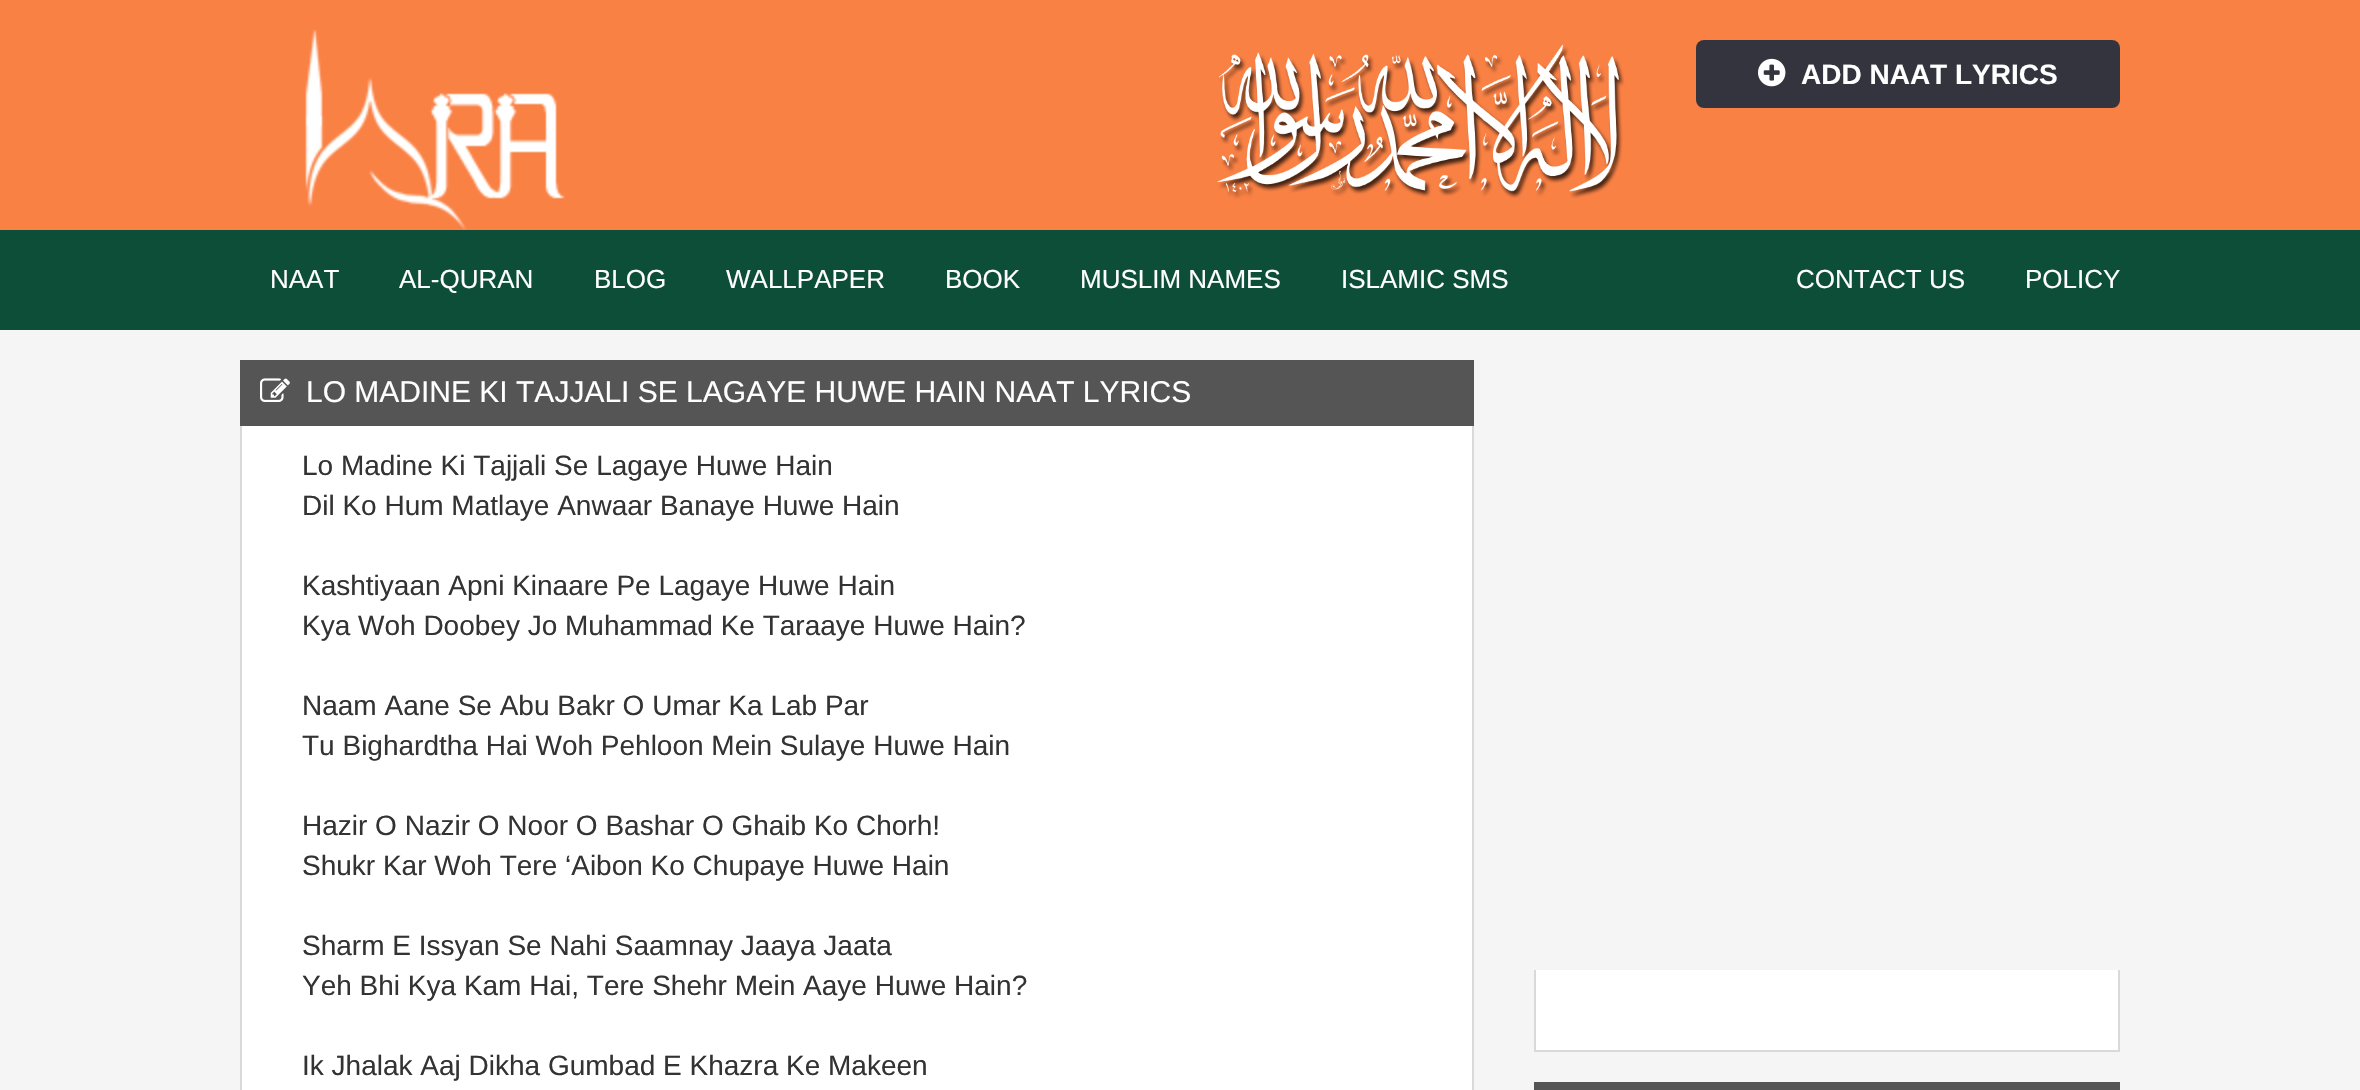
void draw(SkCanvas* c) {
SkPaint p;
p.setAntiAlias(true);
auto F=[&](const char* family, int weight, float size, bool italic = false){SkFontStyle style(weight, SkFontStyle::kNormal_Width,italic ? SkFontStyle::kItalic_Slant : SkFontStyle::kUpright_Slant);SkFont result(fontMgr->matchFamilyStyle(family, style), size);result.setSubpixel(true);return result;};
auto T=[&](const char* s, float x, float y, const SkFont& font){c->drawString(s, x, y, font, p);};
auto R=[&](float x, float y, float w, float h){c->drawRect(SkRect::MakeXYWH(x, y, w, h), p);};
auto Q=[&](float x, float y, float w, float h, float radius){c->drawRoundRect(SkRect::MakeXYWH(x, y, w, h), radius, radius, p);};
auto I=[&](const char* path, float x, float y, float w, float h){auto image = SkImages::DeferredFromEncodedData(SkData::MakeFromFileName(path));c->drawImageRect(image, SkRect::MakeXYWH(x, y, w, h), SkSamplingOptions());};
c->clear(0xfff5f5f5);
p.setColor(0xfffa8144);
R(0,0,2360,230);
I("1.png",305,30,260,200);
I("2.png",1217,44,408,155);
p.setColor(0xff33343e);
Q(1696,40,424,68,8);
I("3.png",1758,58,28,29);
auto f1 = F("Liberation Sans",700,28);
p.setColor(0xffffffff);
T("ADD NAAT LYRICS",1801,84,f1);
p.setColor(0xff0d4e39);
R(0,230,2360,100);
auto f2 = F("Liberation Sans",400,26);
p.setColor(0xffffffff);
T("NAAT",270,288,f2);
T("AL-QURAN",399,288,f2);
T("BLOG",594,288,f2);
T("WALLPAPER",726,288,f2);
T("BOOK",945,288,f2);
T("MUSLIM NAMES",1080,288,f2);
T("ISLAMIC SMS",1341,288,f2);
T("CONTACT US",1796,288,f2);
T("POLICY",2025,288,f2);
p.setColor(0xff555555);
R(240,360,1234,66);
I("4.png",260,378,30,24);
auto f3 = F("Liberation Sans",400,30);
p.setColor(0xffffffff);
T("LO MADINE KI TAJJALI SE LAGAYE HUWE HAIN NAAT LYRICS",306,402,f3);
R(242,426,1230,664);
p.setColor(0xffd9d9d9);
R(1472,426,2,664);
R(240,426,2,664);
auto f4 = F("Liberation Sans",400,28);
p.setColor(0xff333333);
T("Lo Madine Ki Tajjali Se Lagaye Huwe Hain",302,475,f4);
T("Dil Ko Hum Matlaye Anwaar Banaye Huwe Hain",302,515,f4);
T("Kashtiyaan Apni Kinaare Pe Lagaye Huwe Hain",302,595,f4);
T("Kya Woh Doobey Jo Muhammad Ke Taraaye Huwe Hain?",302,635,f4);
T("Naam Aane Se Abu Bakr O Umar Ka Lab Par",302,715,f4);
T("Tu Bighardtha Hai Woh Pehloon Mein Sulaye Huwe Hain",302,755,f4);
T("Hazir O Nazir O Noor O Bashar O Ghaib Ko Chorh!",302,835,f4);
T("Shukr Kar Woh Tere ‘Aibon Ko Chupaye Huwe Hain",302,875,f4);
T("Sharm E Issyan Se Nahi Saamnay Jaaya Jaata",302,955,f4);
T("Yeh Bhi Kya Kam Hai, Tere Shehr Mein Aaye Huwe Hain?",302,995,f4);
T("Ik Jhalak Aaj Dikha Gumbad E Khazra Ke Makeen",302,1075,f4);
p.setColor(0xffffffff);
R(1536,970,582,80);
p.setColor(0xffd9d9d9);
R(2118,970,2,82);
R(1534,1050,586,2);
R(1534,970,2,82);
p.setColor(0xff555555);
R(1534,1082,586,8);
}
